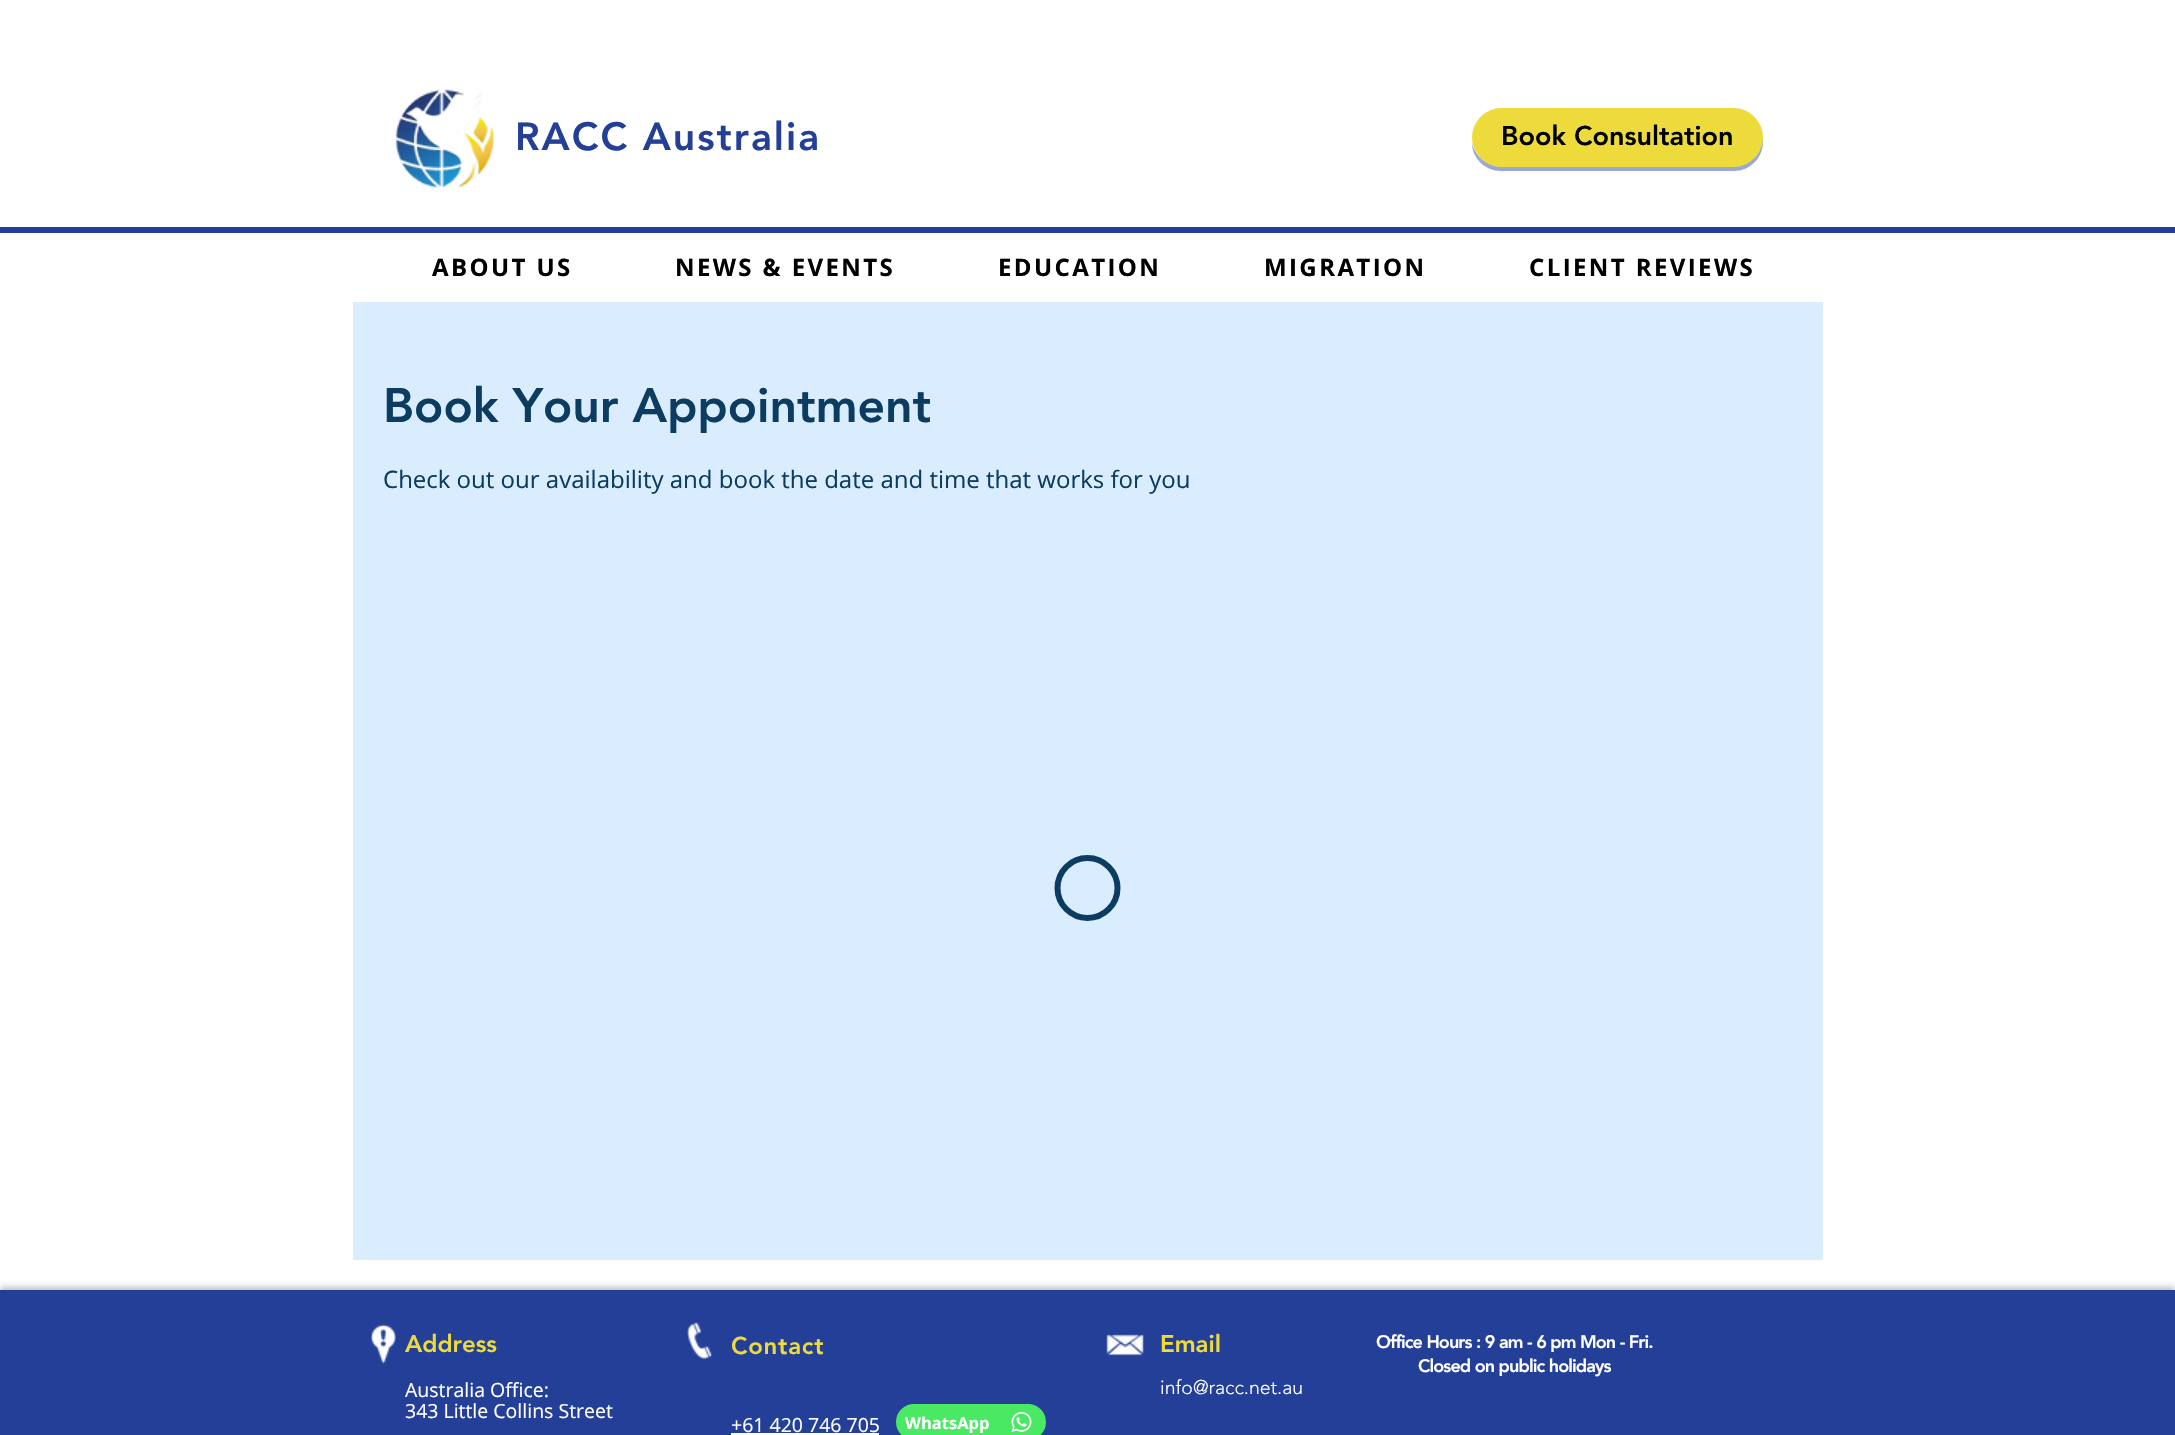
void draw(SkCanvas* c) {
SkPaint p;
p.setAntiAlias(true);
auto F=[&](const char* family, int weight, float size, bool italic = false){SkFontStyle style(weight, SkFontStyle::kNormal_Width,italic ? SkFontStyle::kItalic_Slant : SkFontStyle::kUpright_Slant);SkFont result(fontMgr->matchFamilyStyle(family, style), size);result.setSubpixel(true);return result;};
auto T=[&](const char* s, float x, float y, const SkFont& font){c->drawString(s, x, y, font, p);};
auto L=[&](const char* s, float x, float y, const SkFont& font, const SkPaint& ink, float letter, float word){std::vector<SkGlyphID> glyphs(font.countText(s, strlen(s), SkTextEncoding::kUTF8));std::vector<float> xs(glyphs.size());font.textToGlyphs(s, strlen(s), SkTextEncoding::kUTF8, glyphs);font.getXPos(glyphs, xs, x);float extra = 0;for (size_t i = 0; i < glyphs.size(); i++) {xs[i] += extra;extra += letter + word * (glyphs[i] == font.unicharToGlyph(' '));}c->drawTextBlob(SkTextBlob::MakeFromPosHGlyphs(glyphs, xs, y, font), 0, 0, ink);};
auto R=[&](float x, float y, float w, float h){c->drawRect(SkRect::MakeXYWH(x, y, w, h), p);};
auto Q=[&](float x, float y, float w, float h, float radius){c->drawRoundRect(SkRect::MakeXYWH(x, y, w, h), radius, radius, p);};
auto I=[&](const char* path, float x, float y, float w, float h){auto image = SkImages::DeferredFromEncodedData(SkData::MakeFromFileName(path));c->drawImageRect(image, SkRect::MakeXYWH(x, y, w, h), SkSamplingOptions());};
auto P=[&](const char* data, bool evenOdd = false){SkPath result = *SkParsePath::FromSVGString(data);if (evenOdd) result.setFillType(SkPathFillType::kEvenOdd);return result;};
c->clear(0xffffffff);
I("1.png",395,89,99,99);
auto f1 = F("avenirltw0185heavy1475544",900,39);
p.setColor(0xff233f97);
L("RACC Australia",515,150,f1,p,2,0);
p.setColor(0xff9aa9d4);
c->drawPath(P("M1472 143c0 15 13 28 29 28h233c16 0 29-13 29-29l-1-5c0 16-13 29-29 29h-232c-15 0-26-10-29-23z"),p);
p.setColor(0xffeddb3c);
Q(1472,108,291,59,29.5);
auto f2 = F("avenirltw0185heavy1475544",900,27);
p.setColor(0xff000000);
T("Book Consultation",1501,145,f2);
p.setColor(0xff233f97);
R(0,227,2175,6);
auto f3 = F("Open Sans",700,24);
p.setColor(0xff000000);
L("ABOUT US",432,276,f3,p,2.4,0);
L("NEWS & EVENTS",675,276,f3,p,2.4,0);
L("EDUCATION",998,276,f3,p,2.4,0);
L("MIGRATION",1264,276,f3,p,2.4,0);
L("CLIENT REVIEWS",1529,276,f3,p,2.4,0);
p.setColor(0xffdaedff);
R(353,302,1470,958);
auto f4 = F("avenirltw0185heavy1475544",900,48);
p.setColor(0xff0c3c60);
T("Book Your Appointment",383,422,f4);
auto f5 = F("Open Sans",400,24);
T("Check out our availability and book the date and time that works for you",383,488,f5);
p.setStroke(true);
p.setStrokeWidth(6);
c->drawCircle(1087.5,888,30,p);
p.setStroke(false);
p.setColor(0x40000000);
p.setMaskFilter(SkMaskFilter::MakeBlur(kNormal_SkBlurStyle, 3));
c->drawRect(SkRect::MakeXYWH(0,1287,2175,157),p);
p.setMaskFilter(nullptr);
p.setColor(0xff233f97);
R(0,1290,2175,145);
I("2.png",370,1324,26,40);
auto f6 = F("avenirltw0185heavy1475544",900,24);
p.setColor(0xffeddb3c);
T("Address",405,1352,f6);
auto f7 = F("Open Sans",400,19.5);
p.setColor(0xffffffff);
T("Australia Office:",405,1397,f7);
T("343 Little Collins Street",405,1418,f7);
I("3.png",687,1322,25,37);
p.setColor(0xffeddb3c);
L("Contact",731,1354,f6,p,.75,0);
I("4.png",1106,1334,38,22);
T("Email",1160,1352,f6);
auto f8 = F("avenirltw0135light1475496",300,19.5);
p.setColor(0xffffffff);
T("info@racc.net.au",1160,1394,f8);
auto f9 = F("avenirltw0185heavy1475544",900,18);
L("Office Hours : 9 am - 6 pm Mon - Fri.",1376,1348,f9,p,-.9,0);
L("Closed on public holidays",1418,1372,f9,p,-.9,0);
T("+61 420 746 705",731,1432,f7);
R(731,1433,148,2);
p.setColor(0xff49e964);
c->drawRoundRect(SkRect::MakeXYWH(897.5,1405.5,147,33),16.5,16.5,p);
p.setStroke(true);
p.setStrokeWidth(3);
c->drawRoundRect(SkRect::MakeXYWH(897.5,1405.5,147,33),16.5,16.5,p);
auto f10 = F("Open Sans",700,16.5);
p.setStroke(false);
p.setColor(0xffffffff);
T("WhatsApp",905,1429,f10);
I("5.png",1011,1411,21,21);
}
